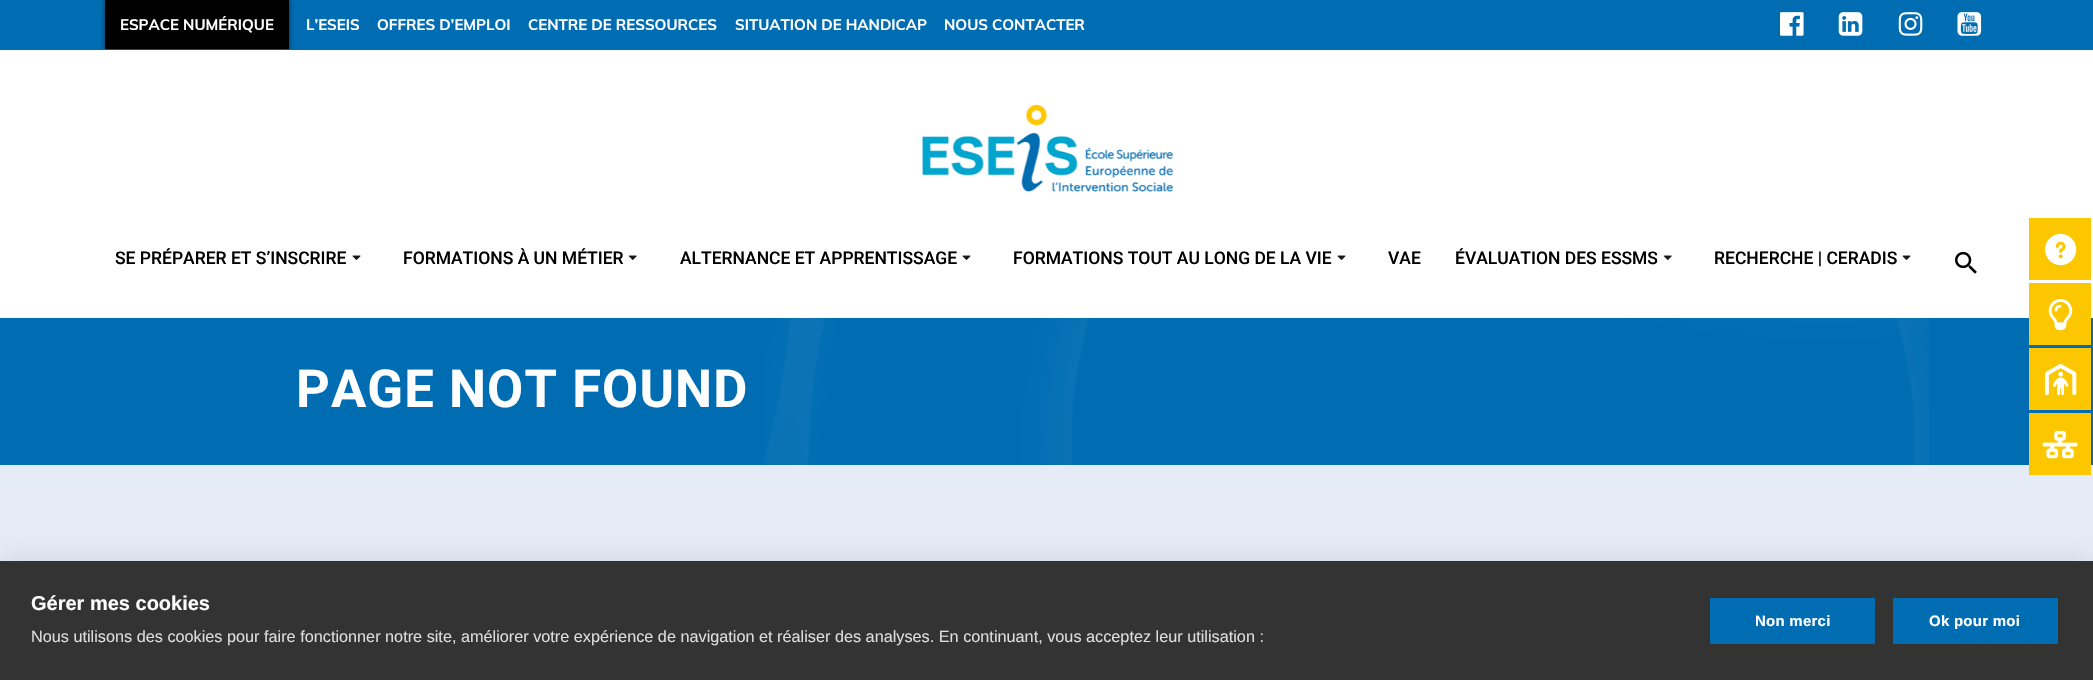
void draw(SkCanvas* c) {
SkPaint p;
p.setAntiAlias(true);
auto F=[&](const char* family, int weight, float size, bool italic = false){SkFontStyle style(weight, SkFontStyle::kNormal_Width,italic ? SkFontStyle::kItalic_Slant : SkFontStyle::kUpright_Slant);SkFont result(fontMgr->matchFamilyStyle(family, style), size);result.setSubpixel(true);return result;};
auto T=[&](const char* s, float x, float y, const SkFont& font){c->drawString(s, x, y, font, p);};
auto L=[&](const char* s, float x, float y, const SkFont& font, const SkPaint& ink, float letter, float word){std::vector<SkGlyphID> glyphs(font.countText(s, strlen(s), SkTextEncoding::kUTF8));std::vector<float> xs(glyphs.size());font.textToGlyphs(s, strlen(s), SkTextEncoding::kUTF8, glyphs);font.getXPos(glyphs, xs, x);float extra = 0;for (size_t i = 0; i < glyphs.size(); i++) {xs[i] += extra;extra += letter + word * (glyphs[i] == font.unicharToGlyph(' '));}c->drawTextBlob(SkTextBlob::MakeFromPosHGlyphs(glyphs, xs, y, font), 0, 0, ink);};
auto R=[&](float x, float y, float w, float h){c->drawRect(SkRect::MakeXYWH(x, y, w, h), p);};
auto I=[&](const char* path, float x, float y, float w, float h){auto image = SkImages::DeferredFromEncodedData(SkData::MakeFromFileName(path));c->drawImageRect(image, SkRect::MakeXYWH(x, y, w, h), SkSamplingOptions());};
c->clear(0xffe5ebf7);
p.setColor(0xff006db3);
R(0,0,2093,50);
p.setColor(0x99000000);
p.setMaskFilter(SkMaskFilter::MakeBlur(kNormal_SkBlurStyle, 2.5));
c->drawRect(SkRect::MakeXYWH(105,0,184,49),p);
p.setMaskFilter(nullptr);
p.setColor(0xff000000);
R(105,0,184,49);
auto f1 = F("Muli",700,15);
p.setColor(0xffffffff);
T("ESPACE NUMÉRIQUE",120,30,f1);
T("L’ESEIS",306,30,f1);
T("OFFRES D’EMPLOI",377,30,f1);
T("CENTRE DE RESSOURCES",528,30,f1);
T("SITUATION DE HANDICAP",735,30,f1);
T("NOUS CONTACTER",944,30,f1);
I("1.png",1780,12,24,24);
I("2.png",1838,12,25,24);
I("3.png",1898,12,25,24);
I("4.png",1957,12,25,24);
R(0,50,2093,268);
I("5.png",921,104,253,88);
auto f2 = F("Roboto",500,17.5);
p.setColor(0xff000000);
T("SE PRÉPARER ET S’INSCRIRE",115,264,f2);
I("6.png",352,255,9,5);
T("FORMATIONS À UN MÉTIER",403,264,f2);
I("7.png",628,255,9,5);
T("ALTERNANCE ET APPRENTISSAGE",680,264,f2);
I("6.png",962,255,9,5);
T("FORMATIONS TOUT AU LONG DE LA VIE",1013,264,f2);
I("6.png",1337,255,9,5);
T("VAE",1388,264,f2);
T("ÉVALUATION DES ESSMS",1455,264,f2);
I("7.png",1663,255,9,5);
T("RECHERCHE | CERADIS",1714,264,f2);
I("6.png",1902,255,9,5);
I("8.png",1955,251,22,23);
p.setColor(0xff006db3);
R(0,318,2093,147);
auto f3 = F("Roboto",700,52.5);
p.setColor(0xffffffff);
L("PAGE NOT FOUND",296,407,f3,p,1.1,0);
I("9.png",763,318,1167,147);
p.setColor(0xfffdc700);
R(2029,218,62,62);
I("10.png",2045,233,32,33);
R(2029,283,62,62);
I("11.png",2048,298,25,33);
R(2029,348,62,62);
I("12.png",2045,363,32,33);
R(2029,413,62,62);
I("13.png",2042,430,36,29);
p.setColor(0x1a000000);
p.setMaskFilter(SkMaskFilter::MakeBlur(kNormal_SkBlurStyle, 12.5));
c->drawRect(SkRect::MakeXYWH(0,561,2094,119),p);
p.setMaskFilter(nullptr);
p.setColor(0xff333333);
R(0,561,2093,119);
auto f4 = F("Liberation Sans",700,20);
p.setColor(0xffffffff);
T("Gérer mes cookies",31,610,f4);
auto f5 = F("Liberation Sans",400,16.25);
p.setColor(0xffdddddd);
T("Nous utilisons des cookies pour faire fonctionner notre site, améliorer votre expérience de navigation et réaliser des analyses. En continuant, vous acceptez leur utilisation :",31,642,f5);
p.setColor(0xff006db3);
R(1710,598,165,46);
auto f6 = F("Liberation Sans",700,15);
p.setColor(0xffffffff);
L("Non merci",1755,626,f6,p,.25,0);
p.setColor(0xff006db3);
R(1893,598,165,46);
p.setColor(0xffffffff);
L("Ok pour moi",1929,626,f6,p,.25,0);
}
